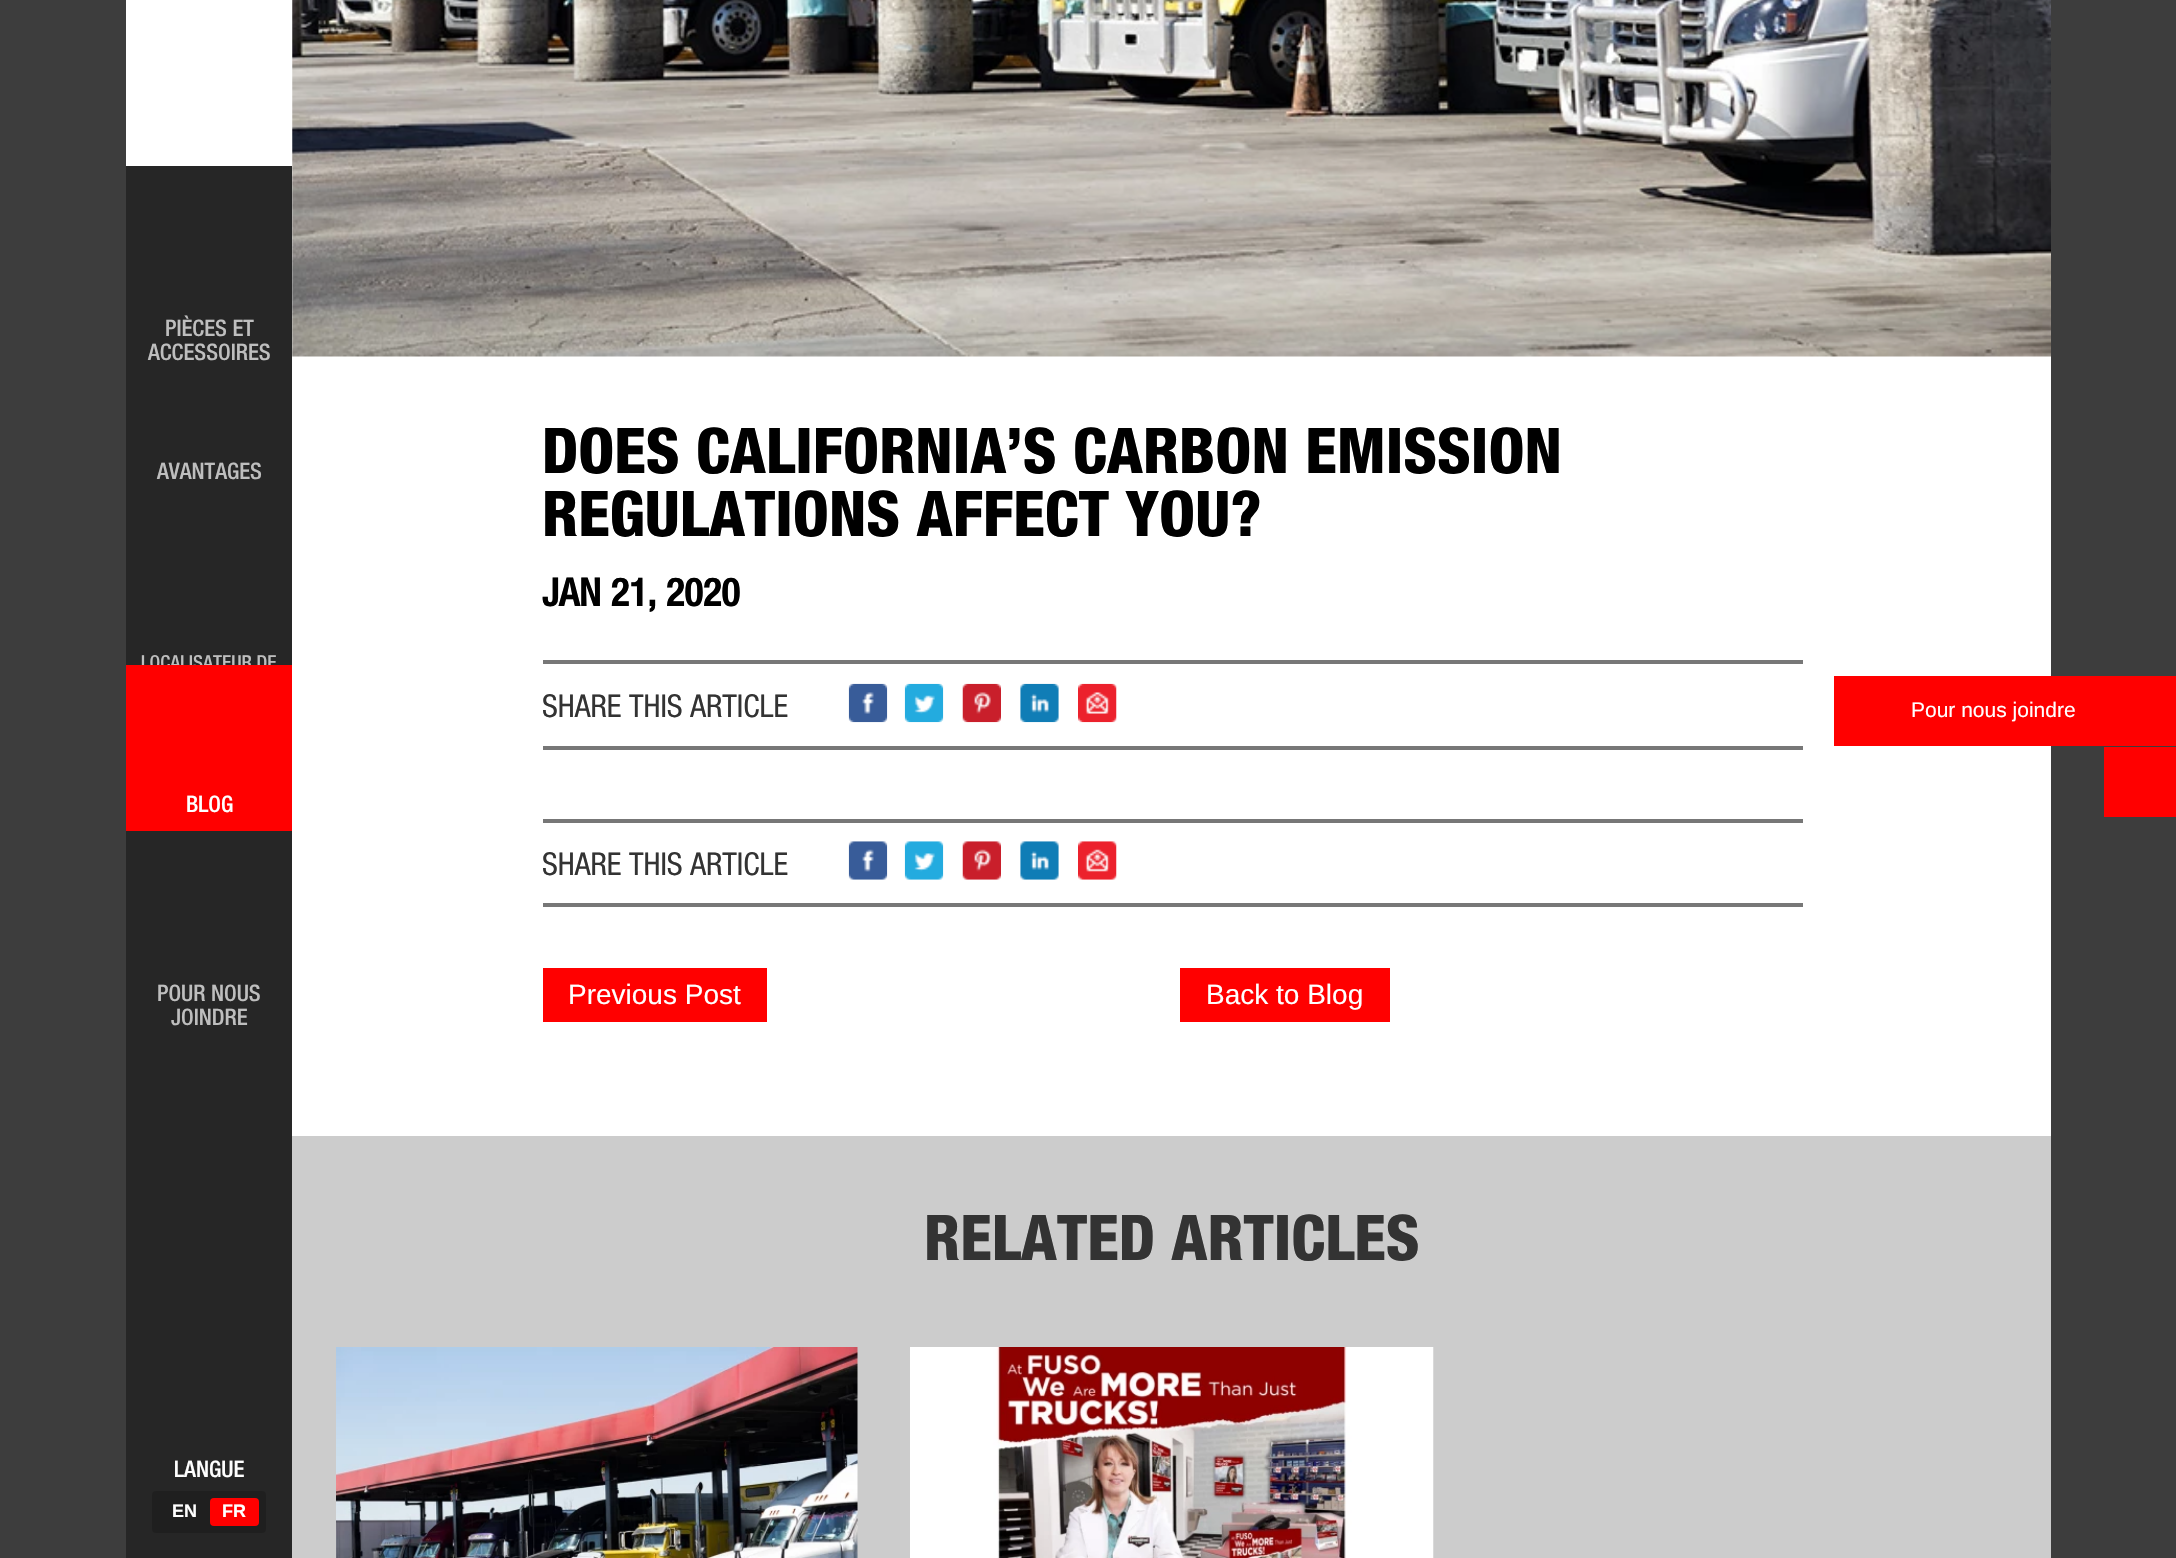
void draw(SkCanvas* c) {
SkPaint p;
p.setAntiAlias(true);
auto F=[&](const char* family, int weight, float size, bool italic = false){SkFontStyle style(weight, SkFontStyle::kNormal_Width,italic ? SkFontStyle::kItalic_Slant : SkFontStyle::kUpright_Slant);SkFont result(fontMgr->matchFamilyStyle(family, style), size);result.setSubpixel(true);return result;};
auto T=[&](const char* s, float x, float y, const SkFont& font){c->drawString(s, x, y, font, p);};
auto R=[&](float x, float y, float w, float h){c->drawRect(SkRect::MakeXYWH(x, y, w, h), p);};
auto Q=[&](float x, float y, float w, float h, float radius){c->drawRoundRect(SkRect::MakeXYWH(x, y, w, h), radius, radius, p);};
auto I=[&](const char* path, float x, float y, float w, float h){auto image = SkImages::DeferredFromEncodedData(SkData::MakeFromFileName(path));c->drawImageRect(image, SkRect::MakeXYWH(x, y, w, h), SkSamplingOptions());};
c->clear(0xff3d3d3d);
p.setColor(0xff262626);
R(126,166,166,1392);
p.setColor(0xffffffff);
R(126,0,166,166);
auto f1 = F("Helvetica Neue",500,22.75);
p.setColor(0xffbebebe);
T("PIÈCES ET",165,336,f1);
T("ACCESSOIRES",148,360,f1);
T("AVANTAGES",157,479,f1);
auto f2 = F("Helvetica Neue",500,19.25);
T("LOCALISATEUR DE",141,669,f2);
p.setColor(0xffff0000);
R(126,665,166,166);
p.setColor(0xffffffff);
T("BLOG",186,812,f1);
p.setColor(0xffbebebe);
T("POUR NOUS",157,1001,f1);
T("JOINDRE",171,1025,f1);
p.setColor(0xffffffff);
T("LANGUE",174,1477,f1);
p.setColor(0xff1f1f1f);
Q(152,1491,114,42,4);
auto f3 = F("Liberation Sans",700,18);
p.setColor(0xffffffff);
T("EN",172,1517,f3);
p.setColor(0xffff0000);
Q(210,1498,49,28,4);
p.setColor(0xffffffff);
T("FR",222,1517,f3);
R(292,0,1759,1136);
I("1.png",292,0,1759,357);
auto f4 = F("Helvetica Neue",700,63);
p.setColor(0xff000000);
T("DOES CALIFORNIA’S CARBON EMISSION",542,473,f4);
T("REGULATIONS AFFECT YOU?",542,536,f4);
auto f5 = F("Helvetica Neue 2",700,38.5);
T("JAN 21, 2020",542,606,f5);
p.setColor(0xff777777);
R(543,660,1260,4);
R(543,746,1260,4);
auto f6 = F("Helvetica Neue",400,31.5);
p.setColor(0xff333333);
T("SHARE THIS ARTICLE",542,717,f6);
I("2.png",848,683,40,40);
I("3.png",904,683,40,40);
I("4.png",962,683,39,40);
I("5.png",1020,683,39,40);
I("6.png",1078,683,39,40);
p.setColor(0xff777777);
R(543,819,1260,4);
R(543,903,1260,4);
p.setColor(0xff333333);
T("SHARE THIS ARTICLE",542,875,f6);
I("7.png",848,841,40,39);
I("8.png",904,841,40,39);
I("9.png",962,841,39,39);
I("10.png",1020,841,39,39);
I("11.png",1078,841,39,39);
p.setColor(0xffff0000);
R(543,968,224,54);
auto f7 = F("Liberation Sans",400,28);
p.setColor(0xffffffff);
T("Previous Post",568,1004,f7);
p.setColor(0xffff0000);
R(1180,968,210,54);
p.setColor(0xffffffff);
T("Back to Blog",1206,1004,f7);
p.setColor(0xffff0000);
R(1834,676,342,70);
auto f8 = F("Liberation Sans",400,21);
p.setColor(0xffffffff);
T("Pour nous joindre",1911,717,f8);
p.setColor(0xffff0000);
R(2104,747,72,70);
p.setColor(0xffcccccc);
R(292,1136,1759,422);
p.setColor(0xff333333);
T("RELATED ARTICLES",924,1260,f4);
I("12.png",336,1347,522,211);
I("13.png",910,1347,524,211);
}
